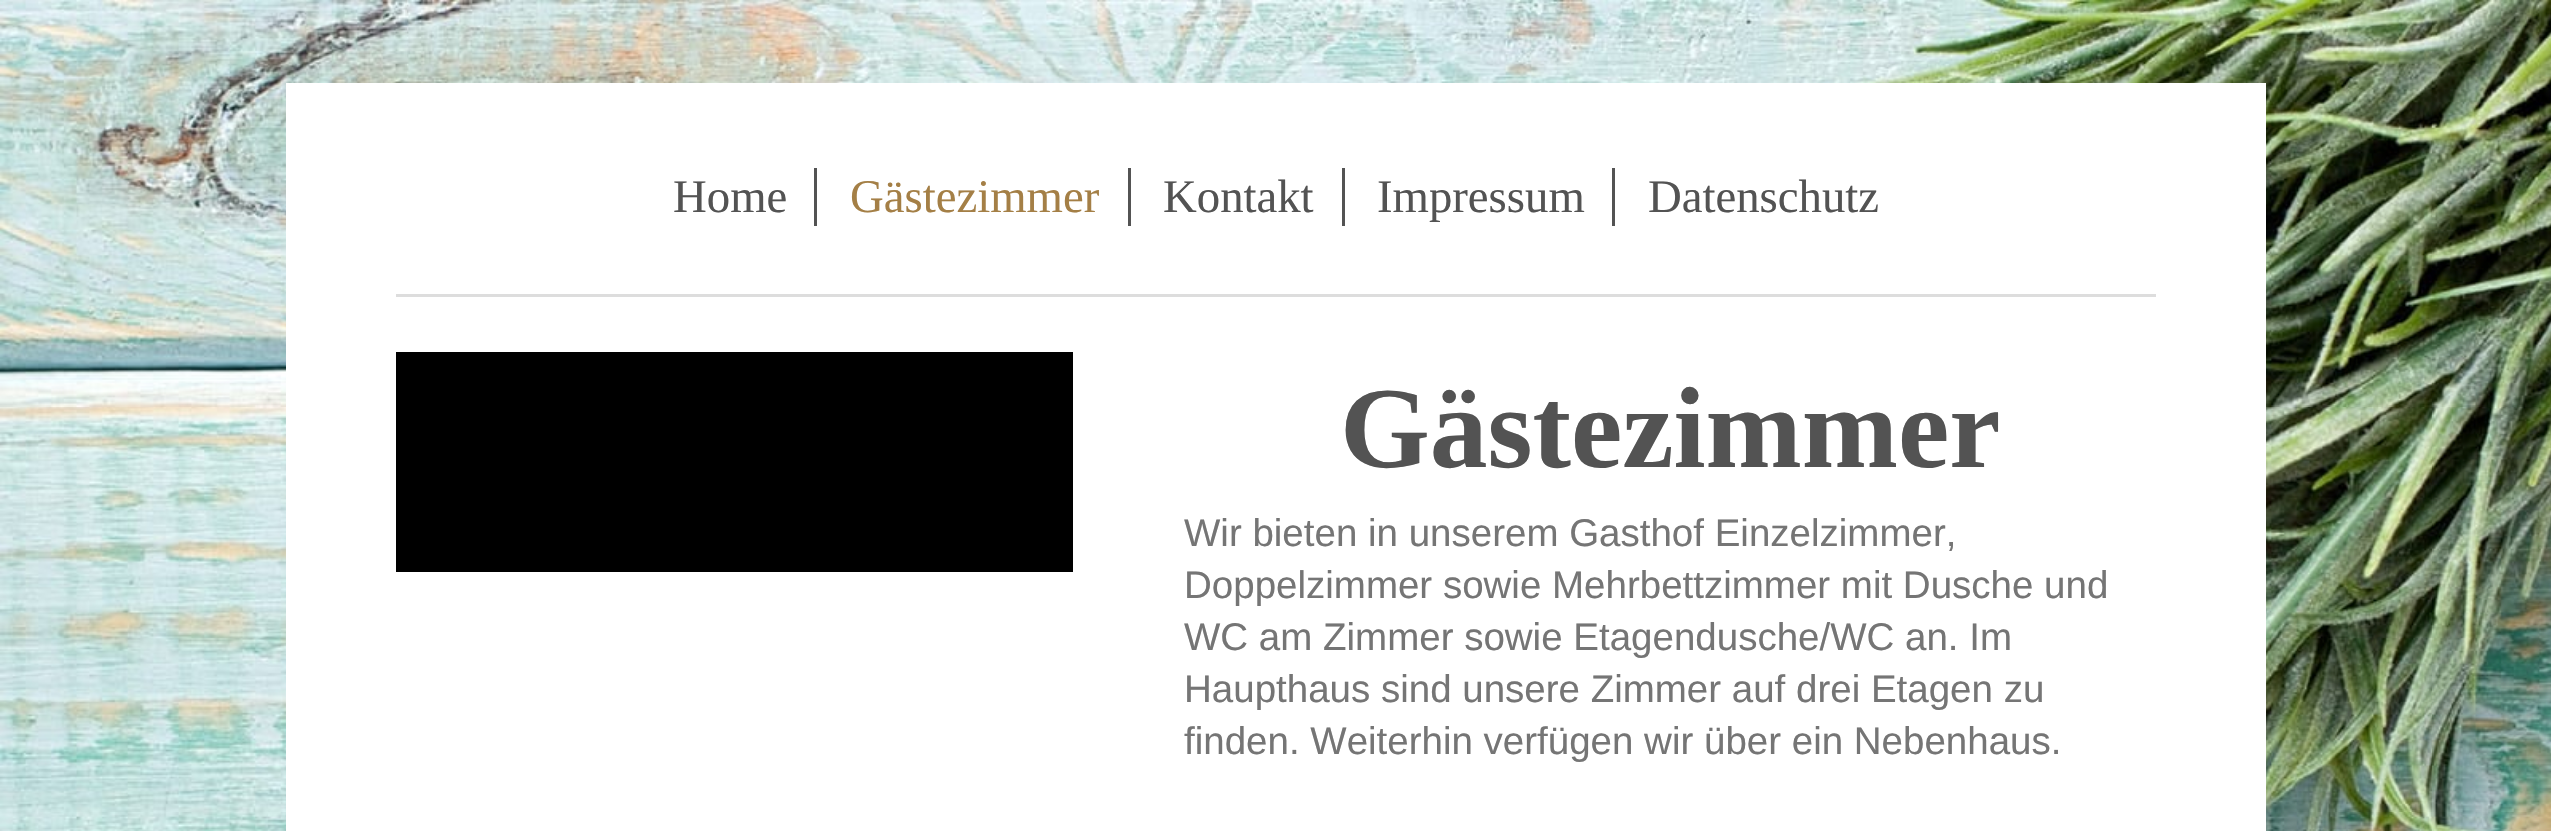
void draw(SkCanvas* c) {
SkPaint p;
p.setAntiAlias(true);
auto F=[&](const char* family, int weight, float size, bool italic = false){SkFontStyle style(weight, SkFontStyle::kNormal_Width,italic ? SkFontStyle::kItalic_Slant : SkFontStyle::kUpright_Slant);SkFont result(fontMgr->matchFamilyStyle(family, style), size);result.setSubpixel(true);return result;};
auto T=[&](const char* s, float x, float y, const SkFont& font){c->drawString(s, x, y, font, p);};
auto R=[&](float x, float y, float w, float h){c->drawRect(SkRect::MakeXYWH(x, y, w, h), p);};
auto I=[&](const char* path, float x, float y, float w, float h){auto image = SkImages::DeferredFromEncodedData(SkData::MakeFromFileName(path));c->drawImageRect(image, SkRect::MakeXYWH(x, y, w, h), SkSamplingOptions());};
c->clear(0xffffffff);
I("1.png",0,0,2551,831);
p.setColor(0xffffffff);
R(286,83,1980,748);
p.setColor(0xffdddddd);
R(396,294,1760,3);
p.setColor(0xff535353);
R(814,168,3,58);
auto f1 = F("Liberation Serif",400,46.75);
T("Home",673,212,f1);
R(1128,168,3,58);
p.setColor(0xffa47f46);
T("Gästezimmer",850,212,f1);
p.setColor(0xff535353);
R(1342,168,3,58);
T("Kontakt",1163,212,f1);
R(1612,168,3,58);
T("Impressum",1377,212,f1);
T("Datenschutz",1648,212,f1);
p.setColor(0xff000000);
R(396,352,677,220);
auto f2 = F("Liberation Serif",700,115.5);
p.setColor(0xff535353);
T("Gästezimmer",1340,467,f2);
auto f3 = F("Liberation Sans",400,38.5);
p.setColor(0xff757575);
T("Wir bieten in unserem Gasthof Einzelzimmer,",1184,546,f3);
T("Doppelzimmer sowie Mehrbettzimmer mit Dusche und",1184,598,f3);
T("WC am Zimmer sowie Etagendusche/WC an. Im",1184,650,f3);
T("Haupthaus sind unsere Zimmer auf drei Etagen zu",1184,702,f3);
T("finden. Weiterhin verfügen wir über ein Nebenhaus.",1184,754,f3);
}
